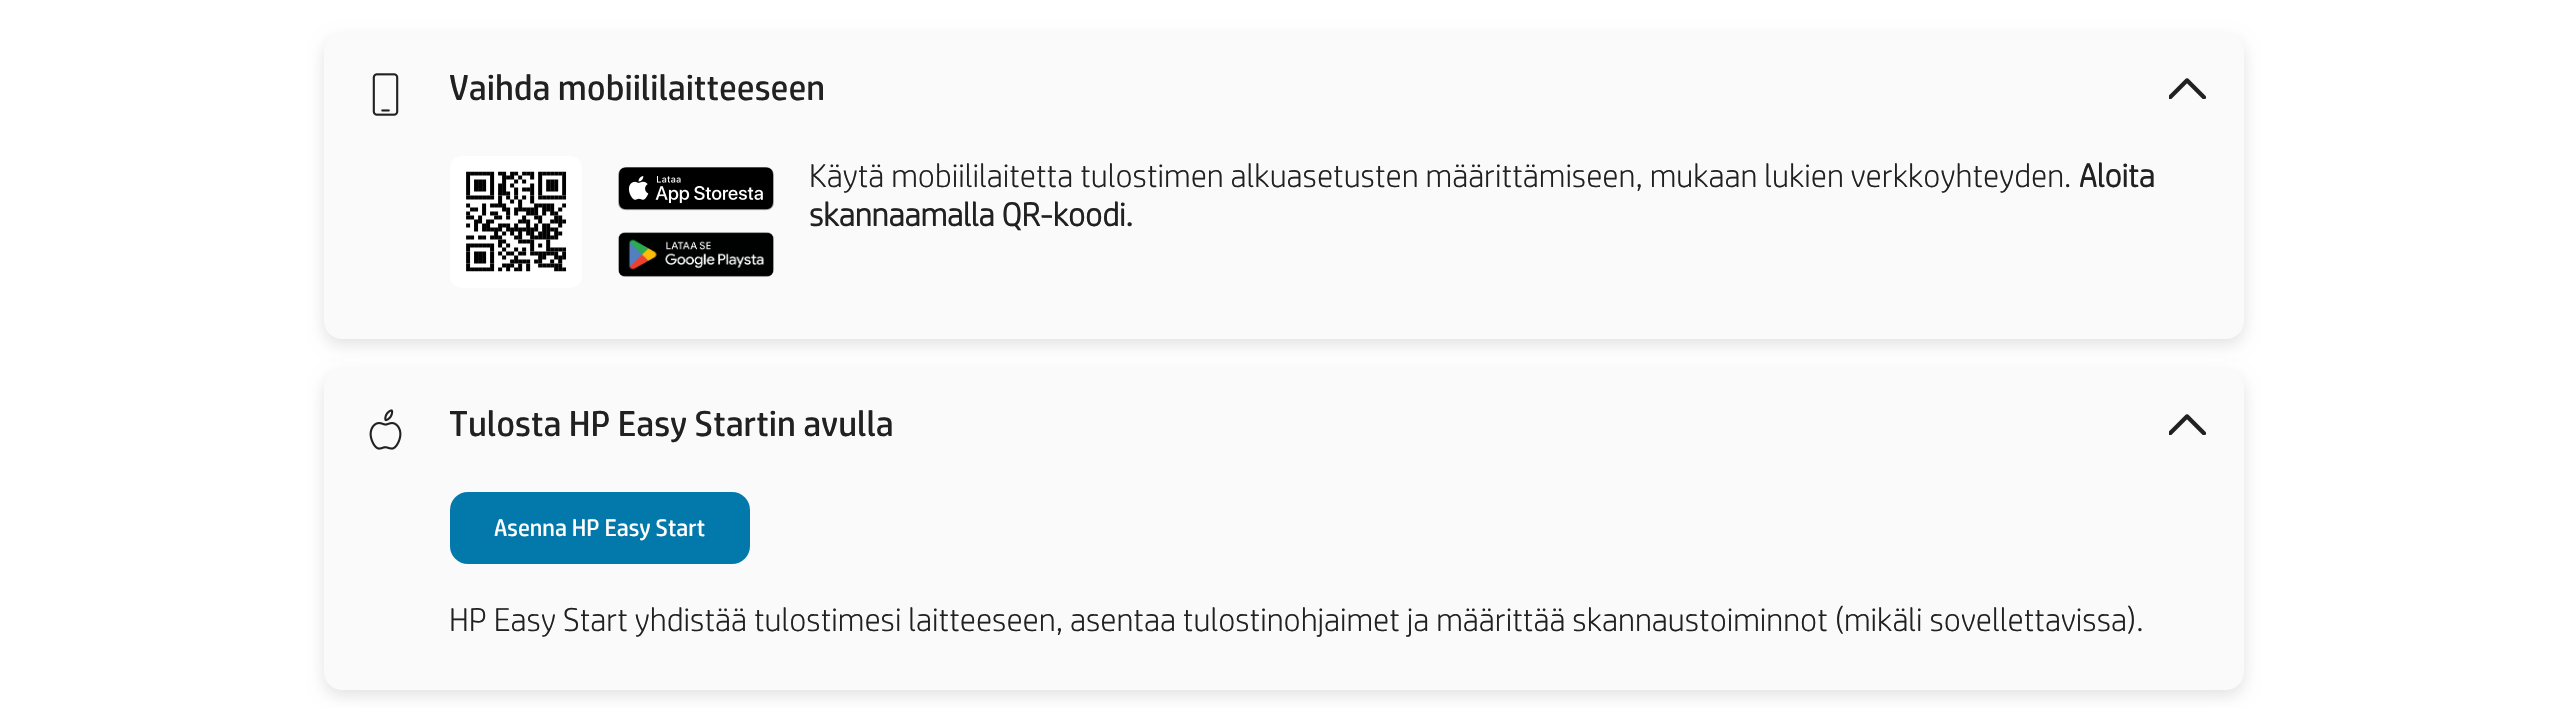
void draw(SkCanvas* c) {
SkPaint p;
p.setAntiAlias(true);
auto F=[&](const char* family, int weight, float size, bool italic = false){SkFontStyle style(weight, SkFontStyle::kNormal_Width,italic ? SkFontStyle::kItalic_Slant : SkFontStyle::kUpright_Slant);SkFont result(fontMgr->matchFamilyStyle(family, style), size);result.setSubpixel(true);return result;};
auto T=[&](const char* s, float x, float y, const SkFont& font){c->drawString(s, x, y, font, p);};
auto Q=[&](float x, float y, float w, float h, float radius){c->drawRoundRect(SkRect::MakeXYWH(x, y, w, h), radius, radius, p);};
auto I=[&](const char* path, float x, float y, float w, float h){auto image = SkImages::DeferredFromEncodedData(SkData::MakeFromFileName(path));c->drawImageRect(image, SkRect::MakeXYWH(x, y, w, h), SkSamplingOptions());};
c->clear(0xffffffff);
p.setColor(0x1c000000);
p.setMaskFilter(SkMaskFilter::MakeBlur(kNormal_SkBlurStyle, 8));
c->drawRoundRect(SkRect::MakeXYWH(324,39,1920,306),18,18,p);
p.setMaskFilter(nullptr);
p.setColor(0xfffafafa);
Q(324,33,1920,306,18);
I("1.png",372,73,27,43);
auto f1 = F("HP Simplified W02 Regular",400,36);
p.setColor(0xff212121);
T("Vaihda mobiililaitteeseen",449,100,f1);
I("2.png",2169,78,38,21);
p.setColor(0xffffffff);
Q(450,156,132,132,12);
I("3.png",466,171,101,101);
I("4.png",618,167,156,44);
I("5.png",618,232,156,45);
auto f2 = F("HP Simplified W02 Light",300,33);
p.setColor(0xff212121);
T("Käytä mobiililaitetta tulostimen alkuasetusten määrittämiseen, mukaan lukien verkkoyhteyden.",809,187,f2);
auto f3 = F("HP Simplified W02 Light",700,33);
T("Aloita",2079,187,f3);
T("skannaamalla QR-koodi.",809,226,f3);
p.setColor(0x1c000000);
p.setMaskFilter(SkMaskFilter::MakeBlur(kNormal_SkBlurStyle, 8));
c->drawRoundRect(SkRect::MakeXYWH(324,375,1920,321),18,18,p);
p.setMaskFilter(nullptr);
p.setColor(0xfffafafa);
Q(324,369,1920,321,18);
I("6.png",369,409,33,41);
p.setColor(0xff212121);
T("Tulosta HP Easy Startin avulla",449,436,f1);
I("2.png",2169,414,38,21);
p.setColor(0xff0278ab);
Q(450,492,300,72,18);
auto f4 = F("HP Simplified W02 Regular",400,24);
p.setColor(0xffffffff);
T("Asenna HP Easy Start",494,536,f4);
p.setColor(0xff212121);
T("HP Easy Start yhdistää tulostimesi laitteeseen, asentaa tulostinohjaimet ja määrittää skannaustoiminnot (mikäli sovellettavissa).",449,631,f2);
}
